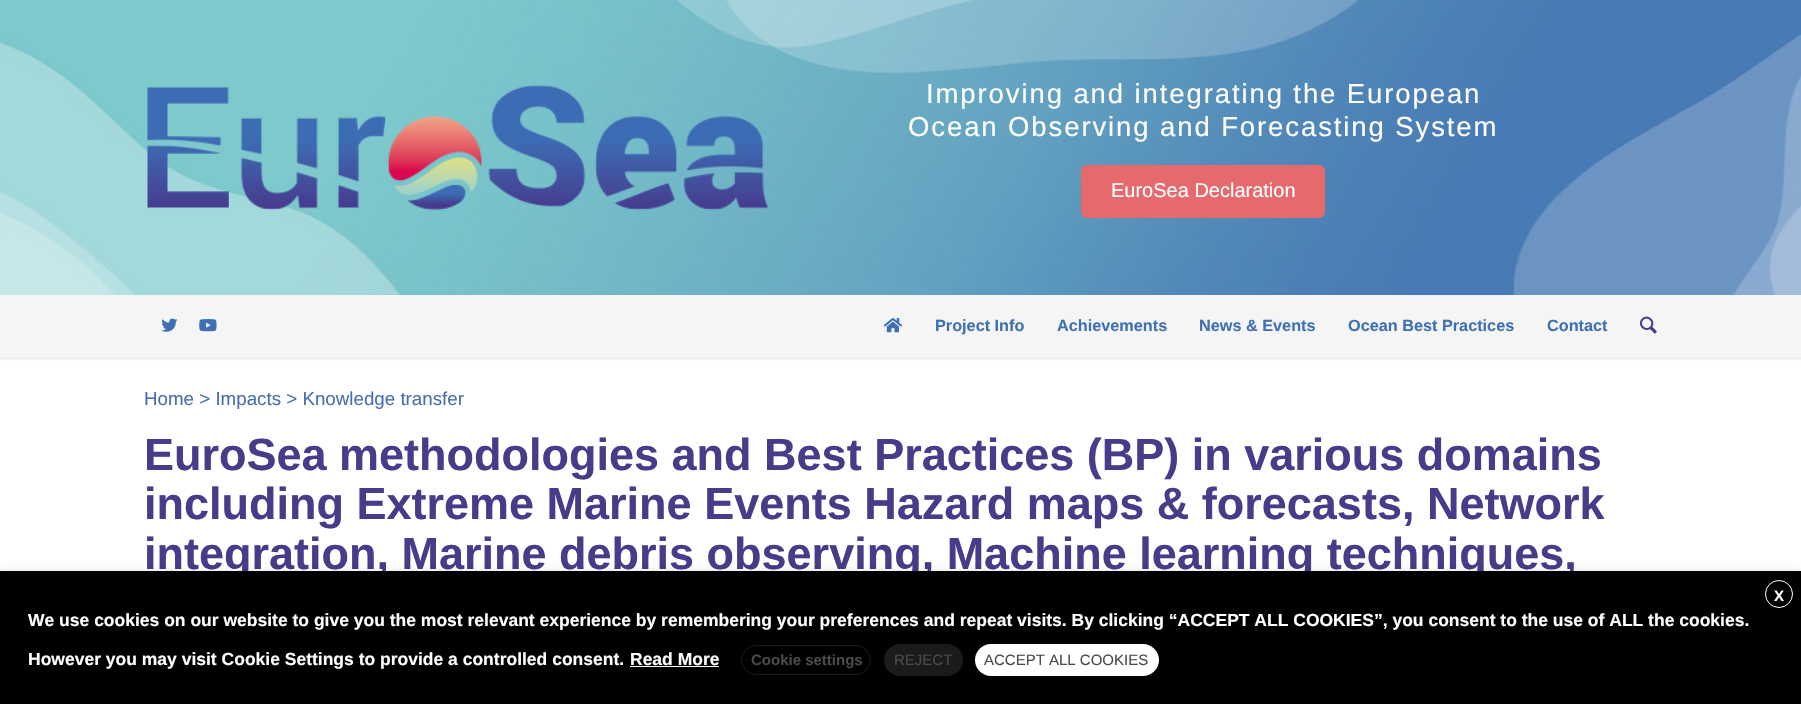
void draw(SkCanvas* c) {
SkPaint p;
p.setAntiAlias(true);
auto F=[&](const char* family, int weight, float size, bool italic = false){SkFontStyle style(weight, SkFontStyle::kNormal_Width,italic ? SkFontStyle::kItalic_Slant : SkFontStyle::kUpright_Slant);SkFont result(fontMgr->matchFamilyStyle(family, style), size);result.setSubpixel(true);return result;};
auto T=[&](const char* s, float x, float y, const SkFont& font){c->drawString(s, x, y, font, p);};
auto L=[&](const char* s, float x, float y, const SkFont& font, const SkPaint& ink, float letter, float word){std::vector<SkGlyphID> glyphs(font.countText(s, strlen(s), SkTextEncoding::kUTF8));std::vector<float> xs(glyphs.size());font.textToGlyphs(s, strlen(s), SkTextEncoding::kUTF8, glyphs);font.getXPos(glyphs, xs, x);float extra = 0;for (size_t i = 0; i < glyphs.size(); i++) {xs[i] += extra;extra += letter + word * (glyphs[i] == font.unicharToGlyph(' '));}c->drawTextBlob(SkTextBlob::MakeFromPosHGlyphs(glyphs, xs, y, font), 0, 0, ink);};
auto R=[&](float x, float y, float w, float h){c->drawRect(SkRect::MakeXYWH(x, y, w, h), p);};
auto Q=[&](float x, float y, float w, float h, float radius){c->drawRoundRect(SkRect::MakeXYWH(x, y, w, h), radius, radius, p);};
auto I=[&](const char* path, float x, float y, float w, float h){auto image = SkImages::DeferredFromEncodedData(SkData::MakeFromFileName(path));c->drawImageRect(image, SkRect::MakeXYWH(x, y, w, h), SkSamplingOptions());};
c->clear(0xffffffff);
p.setColor(0x1a000000);
p.setMaskFilter(SkMaskFilter::MakeBlur(kNormal_SkBlurStyle, 1));
c->drawRect(SkRect::MakeXYWH(-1,-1,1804,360),p);
p.setMaskFilter(nullptr);
I("1.png",0,0,1801,295);
I("2.png",147,85,621,126);
auto f1 = F("Liberation Sans",400,27.5);
p.setColor(0xffffffff);
L("Improving and integrating the European",926,103,f1,p,1.9,0);
L("Ocean Observing and Forecasting System",908,136,f1,p,1.9,0);
p.setColor(0xffe6696b);
Q(1081,165,244,53,6);
auto f2 = F("Liberation Sans",400,20);
p.setColor(0xffffffff);
T("EuroSea Declaration",1111,197,f2);
p.setColor(0xfff5f5f5);
R(0,295,1801,63);
I("3.png",161,318,17,14);
I("4.png",199,319,18,13);
I("5.png",883,318,19,15);
auto f3 = F("Liberation Sans",700,16.25);
p.setColor(0xff3f6fb5);
T("Project Info",935,331,f3);
T("Achievements",1057,331,f3);
T("News & Events",1199,331,f3);
T("Ocean Best Practices",1348,331,f3);
T("Contact",1547,331,f3);
I("6.png",1640,316,17,18);
auto f4 = F("Liberation Sans",400,18.75);
p.setColor(0xff486eaf);
T("Home > Impacts > Knowledge transfer",144,405,f4);
auto f5 = F("Liberation Sans",700,45);
p.setColor(0xff463c89);
T("EuroSea methodologies and Best Practices (BP) in various domains",144,470,f5);
T("including Extreme Marine Events Hazard maps & forecasts, Network",144,519,f5);
T("integration, Marine debris observing, Machine learning techniques,",144,569,f5);
p.setColor(0x80000000);
p.setMaskFilter(SkMaskFilter::MakeBlur(kNormal_SkBlurStyle, 6));
c->drawRect(SkRect::MakeXYWH(0,578,1801,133),p);
p.setMaskFilter(nullptr);
p.setColor(0xff000000);
R(0,571,1801,133);
p.setStroke(true);
p.setStrokeWidth(1);
p.setColor(0xffffffff);
c->drawCircle(1779,594,13.5,p);
auto f6 = F("Liberation Sans",700,15);
p.setStroke(false);
T("X",1774,601,f6);
auto f7 = F("Liberation Sans",700,17.5);
T("We use cookies on our website to give you the most relevant experience by remembering your preferences and repeat visits. By clicking “ACCEPT ALL COOKIES”, you consent to the use of ALL the cookies.",28,626,f7);
T("However you may visit Cookie Settings to provide a controlled consent.",28,665,f7);
T("Read More",630,665,f7);
R(630,666,89,1);
p.setStroke(true);
p.setColor(0xff1c1a1a);
c->drawRoundRect(SkRect::MakeXYWH(741.5,645.5,129,29),14.5,14.5,p);
p.setStroke(false);
p.setColor(0xff4b4949);
T("Cookie settings",751,665,f6);
p.setColor(0xff1c1a1a);
Q(884,644,79,32,16);
auto f8 = F("Liberation Sans",400,15);
p.setColor(0xff4b4949);
T("REJECT",894,665,f8);
p.setColor(0xffffffff);
Q(975,644,184,32,16);
p.setColor(0xff4b4949);
T("ACCEPT ALL COOKIES",984,665,f8);
}
